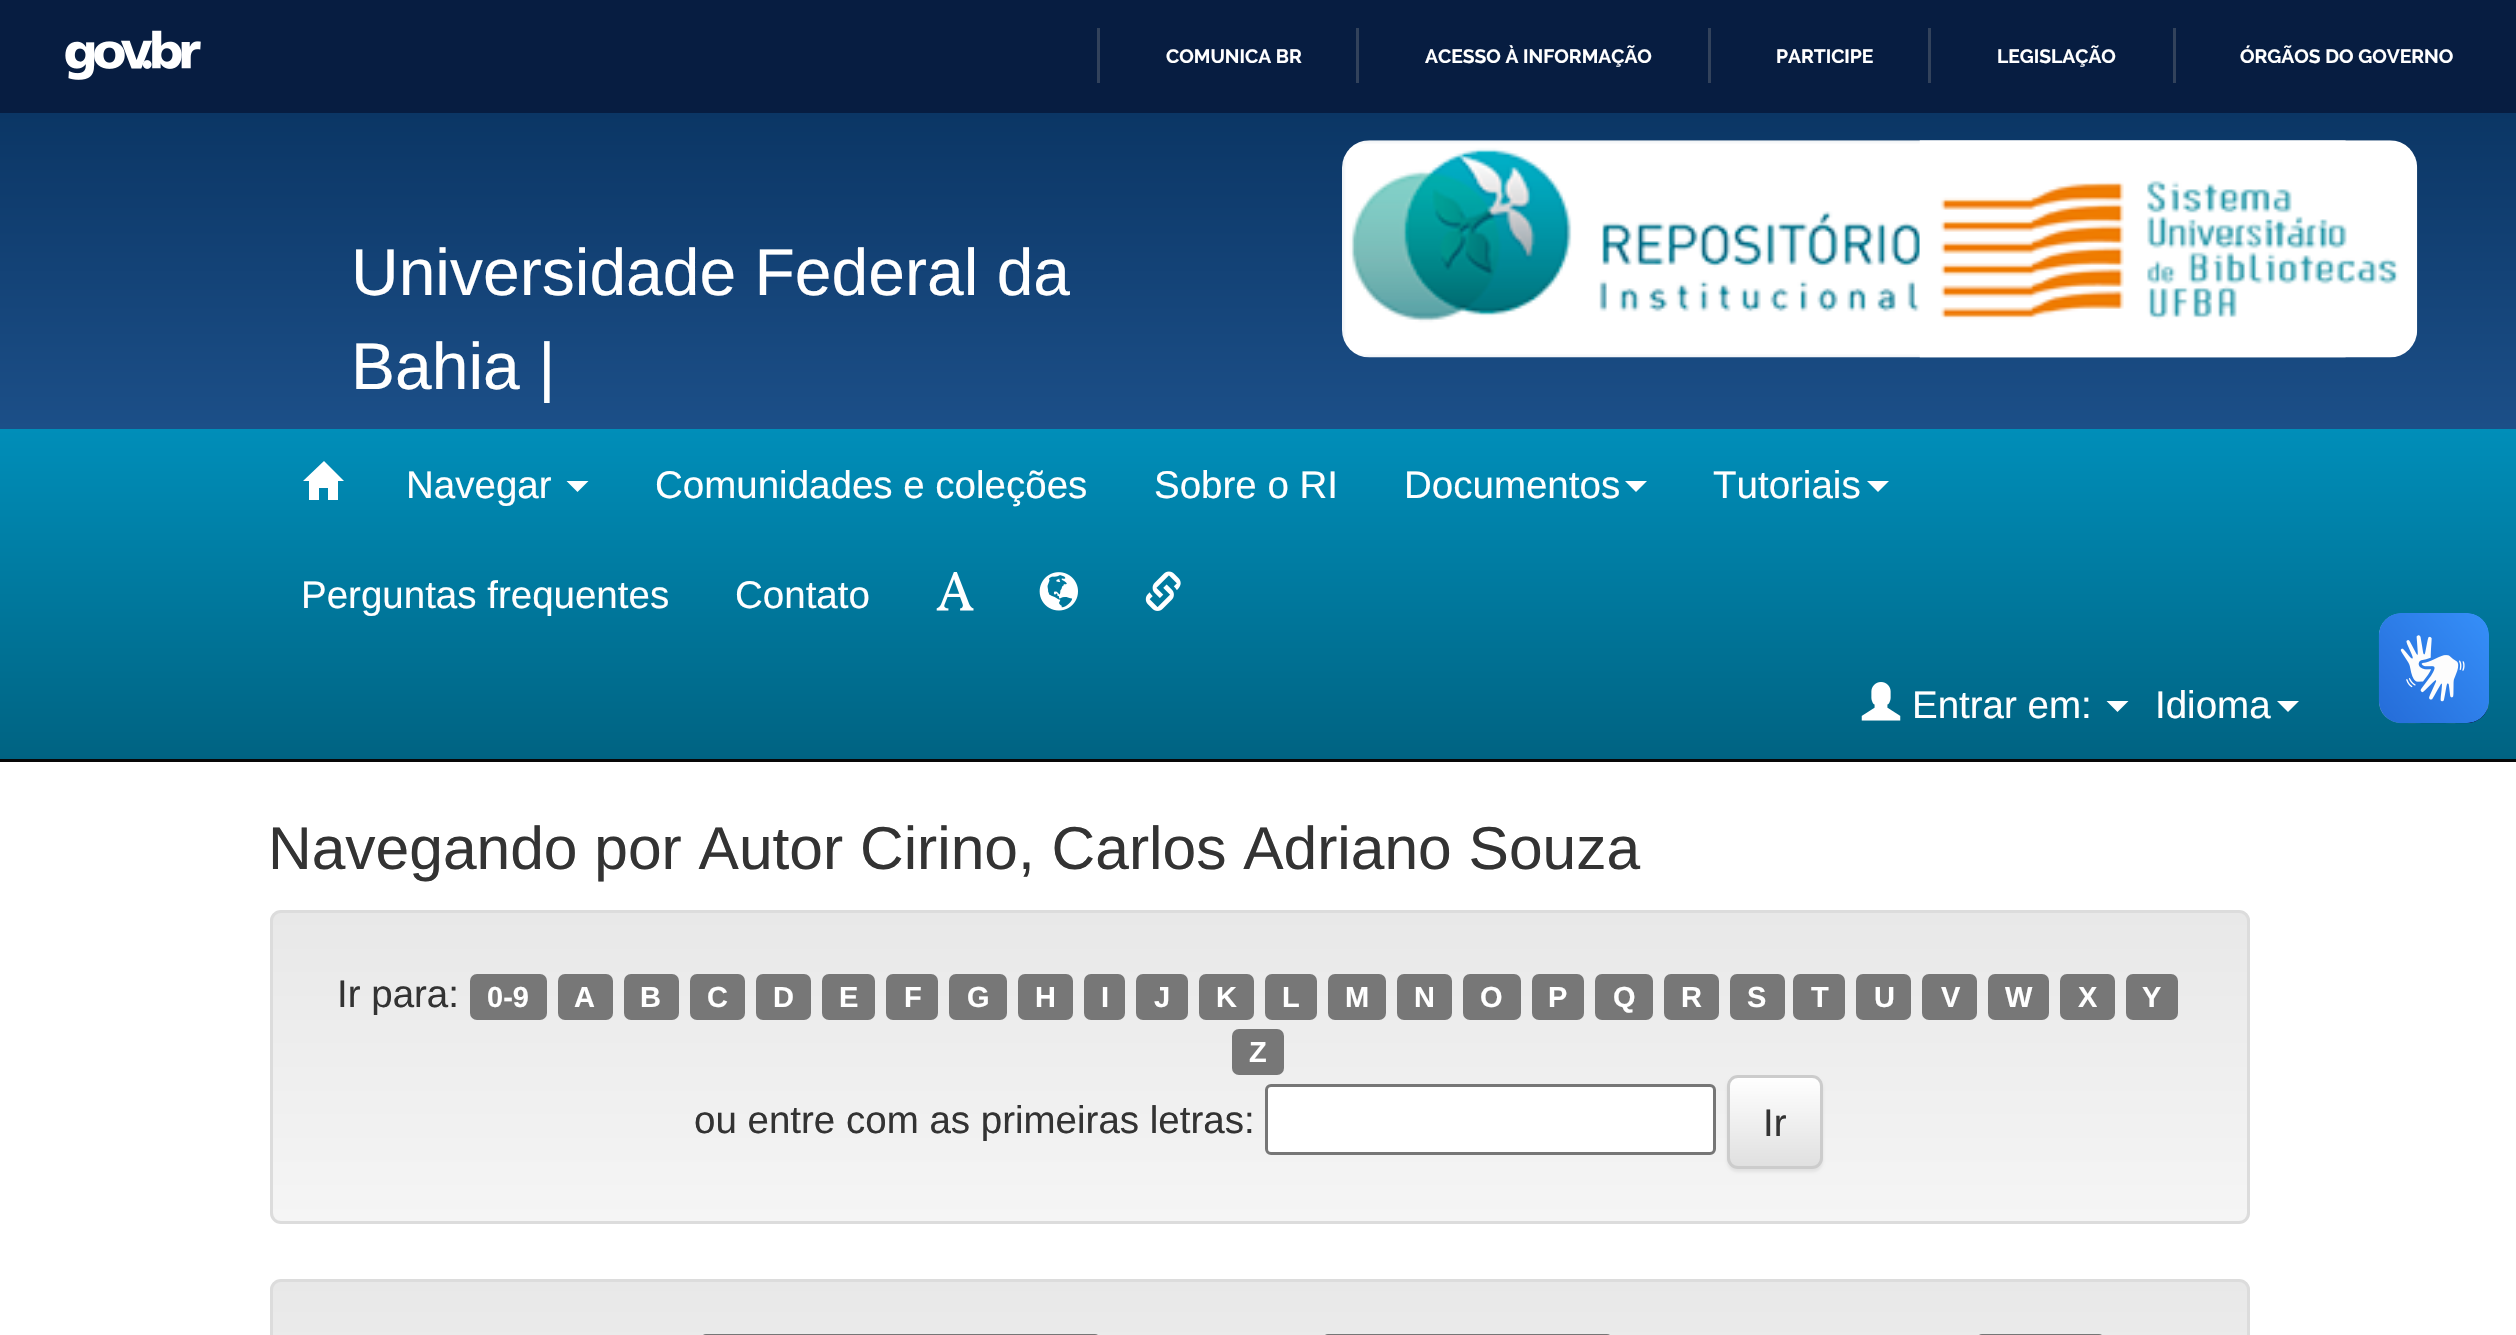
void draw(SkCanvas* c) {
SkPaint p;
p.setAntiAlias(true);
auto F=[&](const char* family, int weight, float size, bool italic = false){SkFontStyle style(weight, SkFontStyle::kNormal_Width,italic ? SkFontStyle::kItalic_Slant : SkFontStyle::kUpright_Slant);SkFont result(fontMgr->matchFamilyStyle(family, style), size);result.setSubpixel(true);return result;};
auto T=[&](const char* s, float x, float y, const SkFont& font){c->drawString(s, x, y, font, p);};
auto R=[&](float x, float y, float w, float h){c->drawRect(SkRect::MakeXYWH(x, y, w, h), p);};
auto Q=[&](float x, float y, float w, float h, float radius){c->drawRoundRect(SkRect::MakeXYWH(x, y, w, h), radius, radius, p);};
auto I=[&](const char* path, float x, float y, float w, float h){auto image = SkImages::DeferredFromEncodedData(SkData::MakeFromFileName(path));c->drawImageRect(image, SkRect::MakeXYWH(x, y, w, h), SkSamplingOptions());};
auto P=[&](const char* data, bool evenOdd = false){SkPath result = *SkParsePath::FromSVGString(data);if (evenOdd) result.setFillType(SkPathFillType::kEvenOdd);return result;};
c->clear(0xffffffff);
p.setColor(0xff071d41);
R(0,0,2516,113);
I("1.png",65,30,136,50);
p.setColor(0xff32425b);
R(1097,28,3,55);
auto f1 = F("Raleway",700,19.25);
p.setColor(0xffffffff);
T("COMUNICA BR",1166,63,f1);
p.setColor(0xff32425b);
R(1356,28,3,55);
p.setColor(0xffffffff);
T("ACESSO À INFORMAÇÃO",1425,63,f1);
p.setColor(0xff32425b);
R(1708,28,3,55);
p.setColor(0xffffffff);
T("PARTICIPE",1776,63,f1);
p.setColor(0xff32425b);
R(1928,28,3,55);
p.setColor(0xffffffff);
T("LEGISLAÇÃO",1997,63,f1);
p.setColor(0xff32425b);
R(2173,28,3,55);
p.setColor(0xffffffff);
T("ÓRGÃOS DO GOVERNO",2240,63,f1);
{
const SkColor colors[] = {0xff0b3665,0xff1c4f88};
const float stops[] = {0,1};
const SkPoint ends[] = {{1258,113}, {1258,429}};
p.setShader(SkGradientShader::MakeLinear(ends, colors, stops, 2, SkTileMode::kClamp));
p.setAlpha(255);
}
R(0,113,2516,316);
auto f2 = F("Liberation Sans",400,66);
p.setShader(nullptr);
p.setColor(0xffffffff);
T("Universidade Federal da",351,295,f2);
T("Bahia |",351,389,f2);
I("2.png",1342,140,1004,218);
I("3.png",1919,140,499,218);
{
const SkColor colors[] = {0xff008eb9,0xff006382};
const float stops[] = {0,1};
const SkPoint ends[] = {{1258,429}, {1258,759}};
p.setShader(SkGradientShader::MakeLinear(ends, colors, stops, 2, SkTileMode::kClamp));
p.setAlpha(255);
}
R(0,429,2516,330);
p.setShader(nullptr);
p.setColor(0xff080808);
R(0,759,2516,3);
p.setColor(0xffffffff);
c->drawPath(P("M344 481h-6v19h-10v-12h-9v12h-10v-19h-6l21-20z"),p);
auto f3 = F("Liberation Sans",400,38.5);
T("Navegar",406,498,f3);
c->drawPath(P("M566.5 481h22l-11 11z"),p);
T("Comunidades e coleções",655,498,f3);
T("Sobre o RI",1154,498,f3);
T("Documentos",1404,498,f3);
c->drawPath(P("M1625 481h22l-11 11z"),p);
T("Tutoriais",1713,498,f3);
c->drawPath(P("M1867 481h22l-11 11z"),p);
T("Perguntas frequentes",301,608,f3);
T("Contato",735,608,f3);
I("4.png",936,572,38,39);
I("5.png",1039,572,39,39);
I("6.png",1145,571,36,40);
I("7.png",1861,682,40,39);
T("Entrar em:",1912,718,f3);
c->drawPath(P("M2106.5 701h22l-11 11z"),p);
T("Idioma",2155,718,f3);
c->drawPath(P("M2277 701h22l-11 11z"),p);
I("8.png",2378,613,111,111);
I("9.png",2379,613,110,110);
auto f4 = F("Liberation Sans",400,60.5);
p.setColor(0xff333333);
T("Navegando por Autor Cirino, Carlos Adriano Souza",268,869,f4);
c->save();
c->clipPath(P("M281 910h1958c6 0 11 5 11 11v292c0 6-5 11-11 11h-1958c-6 0-11-5-11-11v-292c0-6 5-11 11-11z"),true);
{
const SkColor colors[] = {0xffe8e8e8,0xfff5f5f5};
const float stops[] = {0,1};
const SkPoint ends[] = {{1260,913}, {1260,1221}};
p.setShader(SkGradientShader::MakeLinear(ends, colors, stops, 2, SkTileMode::kClamp));
p.setAlpha(255);
}
R(270,913,1980,308);
c->restore();
p.setStroke(true);
p.setStrokeWidth(3);
p.setShader(nullptr);
p.setColor(0xffdcdcdc);
c->drawRoundRect(SkRect::MakeXYWH(271.5,911.5,1977,311),9.5,9.5,p);
p.setStroke(false);
p.setColor(0xff333333);
T("Ir para:",337,1007,f3);
p.setColor(0xff777777);
Q(470,974,77,46,7);
auto f5 = F("Liberation Sans",700,29);
p.setColor(0xffffffff);
T("0-9",487,1007,f5);
p.setColor(0xff777777);
Q(558,974,55,46,7);
p.setColor(0xffffffff);
T("A",574,1007,f5);
p.setColor(0xff777777);
Q(624,974,55,46,7);
p.setColor(0xffffffff);
T("B",640,1007,f5);
p.setColor(0xff777777);
Q(690,974,55,46,7);
p.setColor(0xffffffff);
T("C",707,1007,f5);
p.setColor(0xff777777);
Q(756,974,55,46,7);
p.setColor(0xffffffff);
T("D",773,1007,f5);
p.setColor(0xff777777);
Q(822,974,53,46,7);
p.setColor(0xffffffff);
T("E",839,1007,f5);
p.setColor(0xff777777);
Q(886,974,52,46,7);
p.setColor(0xffffffff);
T("F",904,1007,f5);
p.setColor(0xff777777);
Q(949,974,58,46,7);
p.setColor(0xffffffff);
T("G",967,1007,f5);
p.setColor(0xff777777);
Q(1018,974,55,46,7);
p.setColor(0xffffffff);
T("H",1035,1007,f5);
p.setColor(0xff777777);
Q(1084,974,41,46,7);
p.setColor(0xffffffff);
T("I",1101,1007,f5);
p.setColor(0xff777777);
Q(1136,974,52,46,7);
p.setColor(0xffffffff);
T("J",1154,1007,f5);
p.setColor(0xff777777);
Q(1199,974,55,46,7);
p.setColor(0xffffffff);
T("K",1216,1007,f5);
p.setColor(0xff777777);
Q(1265,974,52,46,7);
p.setColor(0xffffffff);
T("L",1282,1007,f5);
p.setColor(0xff777777);
Q(1328,974,58,46,7);
p.setColor(0xffffffff);
T("M",1345,1007,f5);
p.setColor(0xff777777);
Q(1397,974,55,46,7);
p.setColor(0xffffffff);
T("N",1414,1007,f5);
p.setColor(0xff777777);
Q(1463,974,58,46,7);
p.setColor(0xffffffff);
T("O",1480,1007,f5);
p.setColor(0xff777777);
Q(1532,974,52,46,7);
p.setColor(0xffffffff);
T("P",1548,1007,f5);
p.setColor(0xff777777);
Q(1595,974,58,46,7);
p.setColor(0xffffffff);
T("Q",1613,1007,f5);
p.setColor(0xff777777);
Q(1664,974,55,46,7);
p.setColor(0xffffffff);
T("R",1681,1007,f5);
p.setColor(0xff777777);
Q(1730,974,55,46,7);
p.setColor(0xffffffff);
T("S",1747,1007,f5);
p.setColor(0xff777777);
Q(1793,974,52,46,7);
p.setColor(0xffffffff);
T("T",1811,1007,f5);
p.setColor(0xff777777);
Q(1856,974,55,46,7);
p.setColor(0xffffffff);
T("U",1874,1007,f5);
p.setColor(0xff777777);
Q(1922,974,55,46,7);
p.setColor(0xffffffff);
T("V",1941,1007,f5);
p.setColor(0xff777777);
Q(1988,974,61,46,7);
p.setColor(0xffffffff);
T("W",2005,1007,f5);
p.setColor(0xff777777);
Q(2060,974,55,46,7);
p.setColor(0xffffffff);
T("X",2078,1007,f5);
p.setColor(0xff777777);
Q(2126,974,52,46,7);
p.setColor(0xffffffff);
T("Y",2142,1007,f5);
p.setColor(0xff777777);
Q(1232,1029,52,46,7);
p.setColor(0xffffffff);
T("Z",1249,1062,f5);
p.setColor(0xff333333);
T("ou entre com as primeiras letras:",694,1133,f3);
p.setColor(0xffffffff);
c->drawRoundRect(SkRect::MakeXYWH(1266.5,1085.5,448,68),4.5,4.5,p);
p.setStroke(true);
p.setColor(0xff767676);
c->drawRoundRect(SkRect::MakeXYWH(1266.5,1085.5,448,68),4.5,4.5,p);
p.setStroke(false);
p.setColor(0x12000000);
p.setMaskFilter(SkMaskFilter::MakeBlur(kNormal_SkBlurStyle, 1.5));
c->drawRoundRect(SkRect::MakeXYWH(1727,1078,96,94),11,11,p);
p.setMaskFilter(nullptr);
c->save();
c->clipPath(P("M1738 1075h74c6 0 11 5 11 11v72c0 6-5 11-11 11h-74c-6 0-11-5-11-11v-72c0-6 5-11 11-11z"),true);
{
const SkColor colors[] = {0xffffffff,0xffe0e0e0};
const float stops[] = {0,1};
const SkPoint ends[] = {{1775,1078}, {1775,1166}};
p.setShader(SkGradientShader::MakeLinear(ends, colors, stops, 2, SkTileMode::kClamp));
p.setAlpha(255);
}
R(1727,1078,96,88);
c->restore();
p.setShader(nullptr);
p.setColor(0x26ffffff);
c->drawPath(P("M1738 1081h76c9 2 6 14 6 20v61c1-1 1-2 1-4v-72c0-4-4-8-8-8h-75c-4 0-8 4-8 8v3c0-5 3-8 8-8z"),p);
p.setStroke(true);
p.setColor(0xffcccccc);
c->drawRoundRect(SkRect::MakeXYWH(1728.5,1076.5,93,91),9.5,9.5,p);
p.setStroke(false);
p.setColor(0xff333333);
T("Ir",1763,1136,f3);
c->save();
c->clipPath(P("M281 1279h1958c6 0 11 5 11 11v250c0 6-5 11-11 11h-1958c-6 0-11-5-11-11v-250c0-6 5-11 11-11z"),true);
{
const SkColor colors[] = {0xffe8e8e8,0xfff5f5f5};
const float stops[] = {0,1};
const SkPoint ends[] = {{1260,1281}, {1260,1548}};
p.setShader(SkGradientShader::MakeLinear(ends, colors, stops, 2, SkTileMode::kClamp));
p.setAlpha(255);
}
R(270,1282,1980,53);
c->restore();
p.setStroke(true);
p.setShader(nullptr);
p.setColor(0xffdcdcdc);
c->drawRoundRect(SkRect::MakeXYWH(271.5,1280.5,1977,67),9.5,9.5,p);
p.setColor(0xff767676);
c->drawRoundRect(SkRect::MakeXYWH(702.5,1335.5,396,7),4.5,4.5,p);
c->drawRoundRect(SkRect::MakeXYWH(1324.5,1335.5,286,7),4.5,4.5,p);
c->drawRoundRect(SkRect::MakeXYWH(1978.5,1335.5,124,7),4.5,4.5,p);
}
